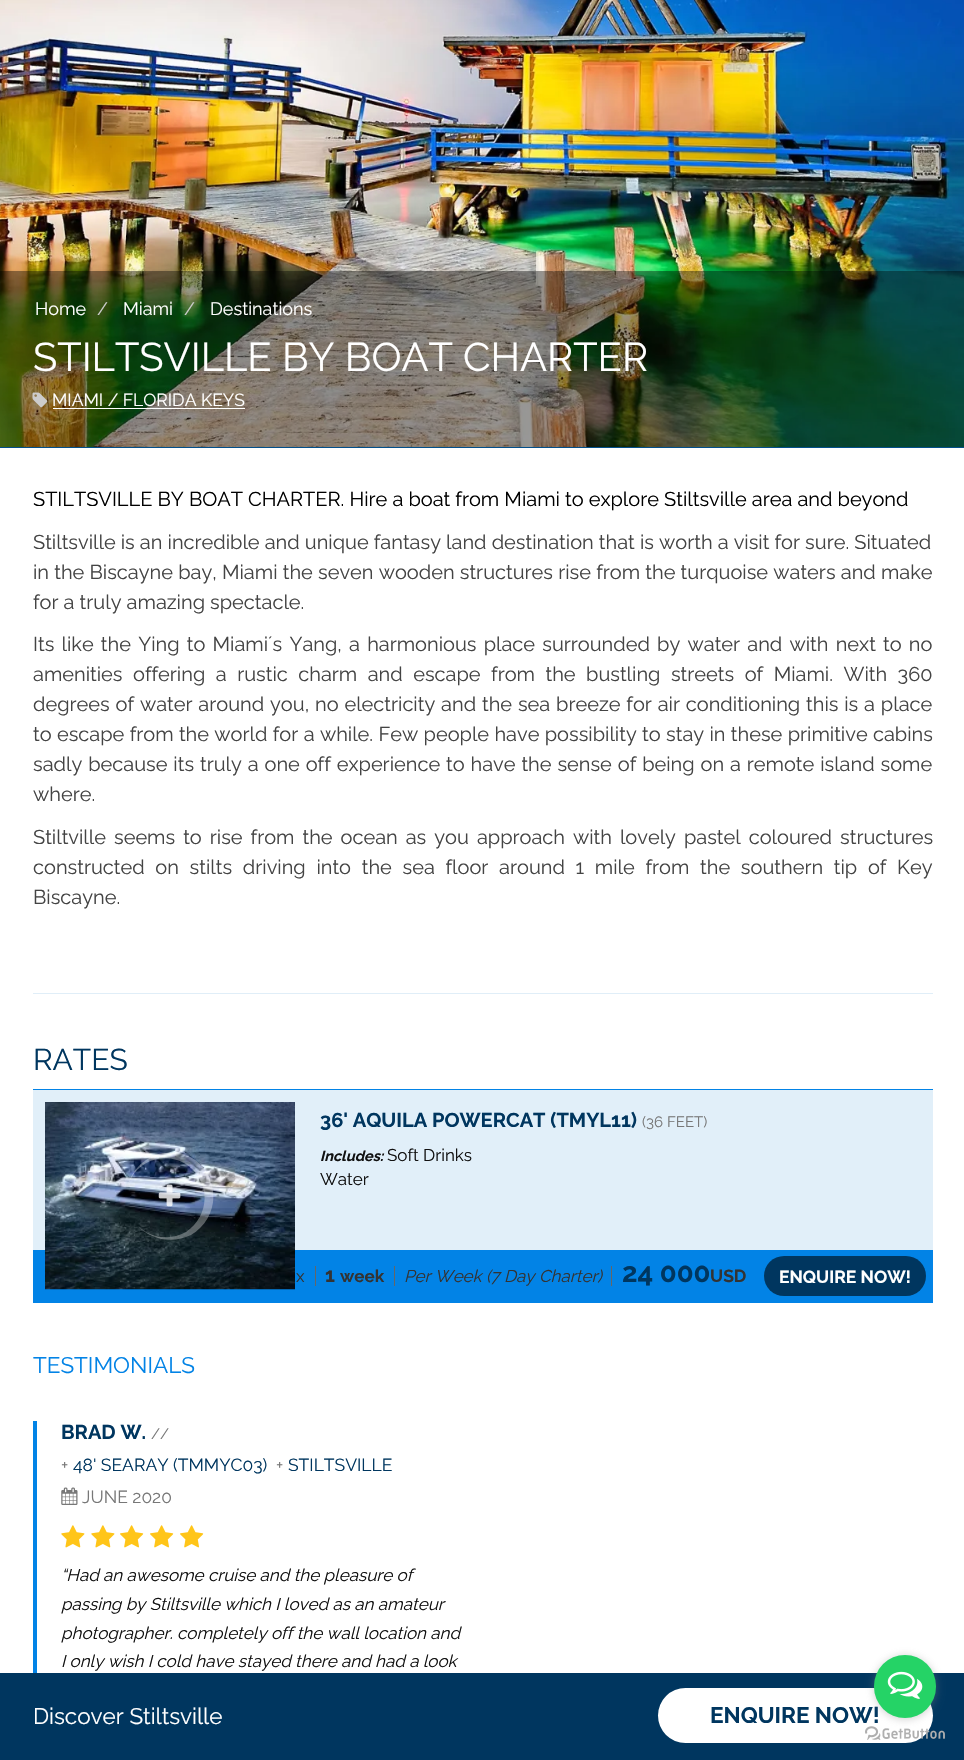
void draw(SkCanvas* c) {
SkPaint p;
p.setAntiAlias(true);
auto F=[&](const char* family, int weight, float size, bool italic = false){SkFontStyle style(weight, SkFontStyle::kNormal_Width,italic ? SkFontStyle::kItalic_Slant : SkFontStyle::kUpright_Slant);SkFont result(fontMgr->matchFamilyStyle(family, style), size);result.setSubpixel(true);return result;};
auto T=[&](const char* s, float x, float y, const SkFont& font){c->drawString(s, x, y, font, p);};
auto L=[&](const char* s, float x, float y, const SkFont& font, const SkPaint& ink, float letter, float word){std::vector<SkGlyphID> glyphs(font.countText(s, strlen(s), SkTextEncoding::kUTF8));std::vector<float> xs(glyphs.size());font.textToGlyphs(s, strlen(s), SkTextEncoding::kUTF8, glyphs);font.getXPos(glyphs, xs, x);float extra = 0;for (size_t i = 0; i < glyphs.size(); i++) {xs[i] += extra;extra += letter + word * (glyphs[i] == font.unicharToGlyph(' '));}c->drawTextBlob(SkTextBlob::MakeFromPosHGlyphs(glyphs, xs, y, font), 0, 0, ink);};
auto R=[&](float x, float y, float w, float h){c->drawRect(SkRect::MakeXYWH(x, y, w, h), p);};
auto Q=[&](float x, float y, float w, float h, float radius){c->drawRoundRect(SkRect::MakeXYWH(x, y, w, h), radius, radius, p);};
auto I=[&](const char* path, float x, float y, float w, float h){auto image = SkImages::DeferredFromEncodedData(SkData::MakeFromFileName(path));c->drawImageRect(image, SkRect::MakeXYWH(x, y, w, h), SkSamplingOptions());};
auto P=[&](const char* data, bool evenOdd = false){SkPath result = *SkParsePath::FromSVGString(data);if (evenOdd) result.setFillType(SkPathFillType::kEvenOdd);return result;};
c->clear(0xffffffff);
p.setColor(0xff0283e6);
R(0,447,964,1);
I("1.png",0,0,964,447);
p.setColor(0x66000000);
R(0,271,964,177);
auto f1 = F("Raleway",400,18);
p.setColor(0xffffffff);
T("Home",35,315,f1);
p.setColor(0xffcccccc);
T("/",97,315,f1);
p.setColor(0xffffffff);
T("Miami",123,315,f1);
p.setColor(0xffcccccc);
T("/",184,315,f1);
p.setColor(0xffffffff);
T("Destinations",210,315,f1);
auto f2 = F("Raleway",400,40);
T("STILTSVILLE BY BOAT CHARTER",33,371,f2);
I("2.png",32,392,16,16);
auto f3 = F("Raleway",400,17.5);
T("MIAMI / FLORIDA KEYS",52,406,f3);
R(53,408,192,1);
auto f4 = F("Raleway",400,20);
p.setColor(0xff000000);
T("STILTSVILLE BY BOAT CHARTER. Hire a boat from Miami to explore Stiltsville area and beyond",33,506,f4);
p.setColor(0xff444444);
T("Stiltsville is an incredible and unique fantasy land destination that is worth a visit for sure. Situated",33,549,f4);
L("in the Biscayne bay, Miami the seven wooden structures rise from the turquoise waters and make",33,579,f4,p,0,.1);
T("for a truly amazing spectacle.",33,609,f4);
L("Its like the Ying to Miami´s Yang, a harmonious place surrounded by water and with next to no",33,651,f4,p,0,2.1);
L("amenities offering a rustic charm and escape from the bustling streets of Miami. With 360",33,681,f4,p,0,5.4);
L("degrees of water around you, no electricity and the sea breeze for air conditioning this is a place",33,711,f4,p,0,.75);
L("to escape from the world for a while. Few people have possibility to stay in these primitive cabins",33,741,f4,p,0,.25);
L("sadly because its truly a one off experience to have the sense of being on a remote island some",33,771,f4,p,0,.8);
T("where.",33,801,f4);
L("Stiltville seems to rise from the ocean as you approach with lovely pastel coloured structures",33,844,f4,p,0,2.9);
L("constructed on stilts driving into the sea floor around 1 mile from the southern tip of Key",33,874,f4,p,0,5.6);
T("Biscayne.",33,904,f4);
p.setColor(0xffe0eef8);
R(33,993,900,1);
auto f5 = F("Raleway",400,30);
p.setColor(0xff00365f);
T("RATES",33,1070,f5);
p.setColor(0xffe1eff9);
R(33,1090,900,160);
p.setColor(0xff0283e6);
R(33,1089,900,1);
R(33,1250,900,53);
I("3.png",45,1102,250,188);
I("4.png",158,1184,23,23);
c->save();
c->clipRect(SkRect::MakeXYWH(126,1153,88,87));
p.setColor(0x52ffffff);
c->drawPath(P("M170 1152c-21 1-39 16-43 37c4-18 19-30 37-31c18 0 34 11 39 29c5 17-2 35-17 45c-16 9-36 6-48-6c13 14 35 18 53 9c17-10 26-30 21-49c-4-20-22-34-42-34z"),p);
c->restore();
auto f6 = F("Raleway",700,20);
p.setColor(0xff00365f);
T("36' AQUILA POWERCAT (TMYL11)",320,1127,f6);
auto f7 = F("Raleway",400,15);
p.setColor(0xff777777);
T("(36 FEET)",642,1127,f7);
auto f8 = F("Raleway",700,14.5,true);
p.setColor(0xff111111);
T("Includes:",320,1161,f8);
auto f9 = F("Raleway",400,17);
T("Soft Drinks",387,1161,f9);
T("Water",320,1185,f9);
p.setColor(0xff666666);
R(315,1266,1,20);
p.setColor(0xff333333);
T("x",296,1282,f9);
p.setColor(0xff666666);
R(394,1266,1,20);
p.setColor(0xff333333);
T("1",325,1282,f6);
auto f10 = F("Raleway",700,17);
T("week",340,1282,f10);
p.setColor(0xff666666);
R(611,1266,1,20);
auto f11 = F("Raleway",400,17,true);
p.setColor(0xff333333);
T("Per Week (7 Day Charter)",404,1282,f11);
auto f12 = F("Raleway",700,27.5);
p.setColor(0xff00365f);
T("24 000",622,1282,f12);
auto f13 = F("Raleway",700,17.5);
p.setColor(0xff333333);
T("USD",710,1282,f13);
p.setColor(0xff00365f);
Q(764,1256,162,40,20);
p.setColor(0xffffffff);
T("ENQUIRE NOW!",779,1283,f13);
auto f14 = F("Raleway",400,22.5);
p.setColor(0xff0283e6);
T("TESTIMONIALS",33,1373,f14);
R(33,1421,4,252);
p.setColor(0xff00365f);
T("BRAD W.",61,1439,f6);
p.setColor(0xff777777);
T("//",151,1439,f7);
T("+",61,1471,f3);
p.setColor(0xff00365f);
T("48' SEARAY (TMMYC03)",73,1471,f3);
p.setColor(0xff777777);
T("+",276,1471,f3);
p.setColor(0xff00365f);
T("STILTSVILLE",288,1471,f3);
I("5.png",61,1487,17,18);
p.setColor(0xff777777);
T("JUNE 2020",82,1503,f3);
I("6.png",61,1525,24,23);
I("6.png",91,1525,24,23);
I("7.png",120,1525,24,23);
I("7.png",150,1525,24,23);
I("7.png",180,1525,24,23);
p.setColor(0xff111111);
T("“Had an awesome cruise and the pleasure of",61,1581,f11);
T("passing by Stiltsville which I loved as an amateur",61,1610,f11);
T("photographer. completely off the wall location and",61,1639,f11);
T("I only wish I cold have stayed there and had a look",61,1667,f11);
p.setColor(0xff00365f);
R(0,1673,964,87);
p.setColor(0xffffffff);
T("Discover Stiltsville",33,1724,f14);
Q(658,1688,275,55,27.5);
auto f15 = F("Raleway",700,22.5);
p.setColor(0xff00365f);
T("ENQUIRE NOW!",710,1723,f15);
I("9.png",865,1726,80,14);
p.setColor(0x66888888);
p.setMaskFilter(SkMaskFilter::MakeBlur(kNormal_SkBlurStyle, 4.5));
c->drawRoundRect(SkRect::MakeXYWH(874,1656,62,63),31,31,p);
p.setMaskFilter(nullptr);
p.setColor(0xff25d366);
Q(874,1655,62,63,31);
I("8.png",887,1671,36,28);
}
